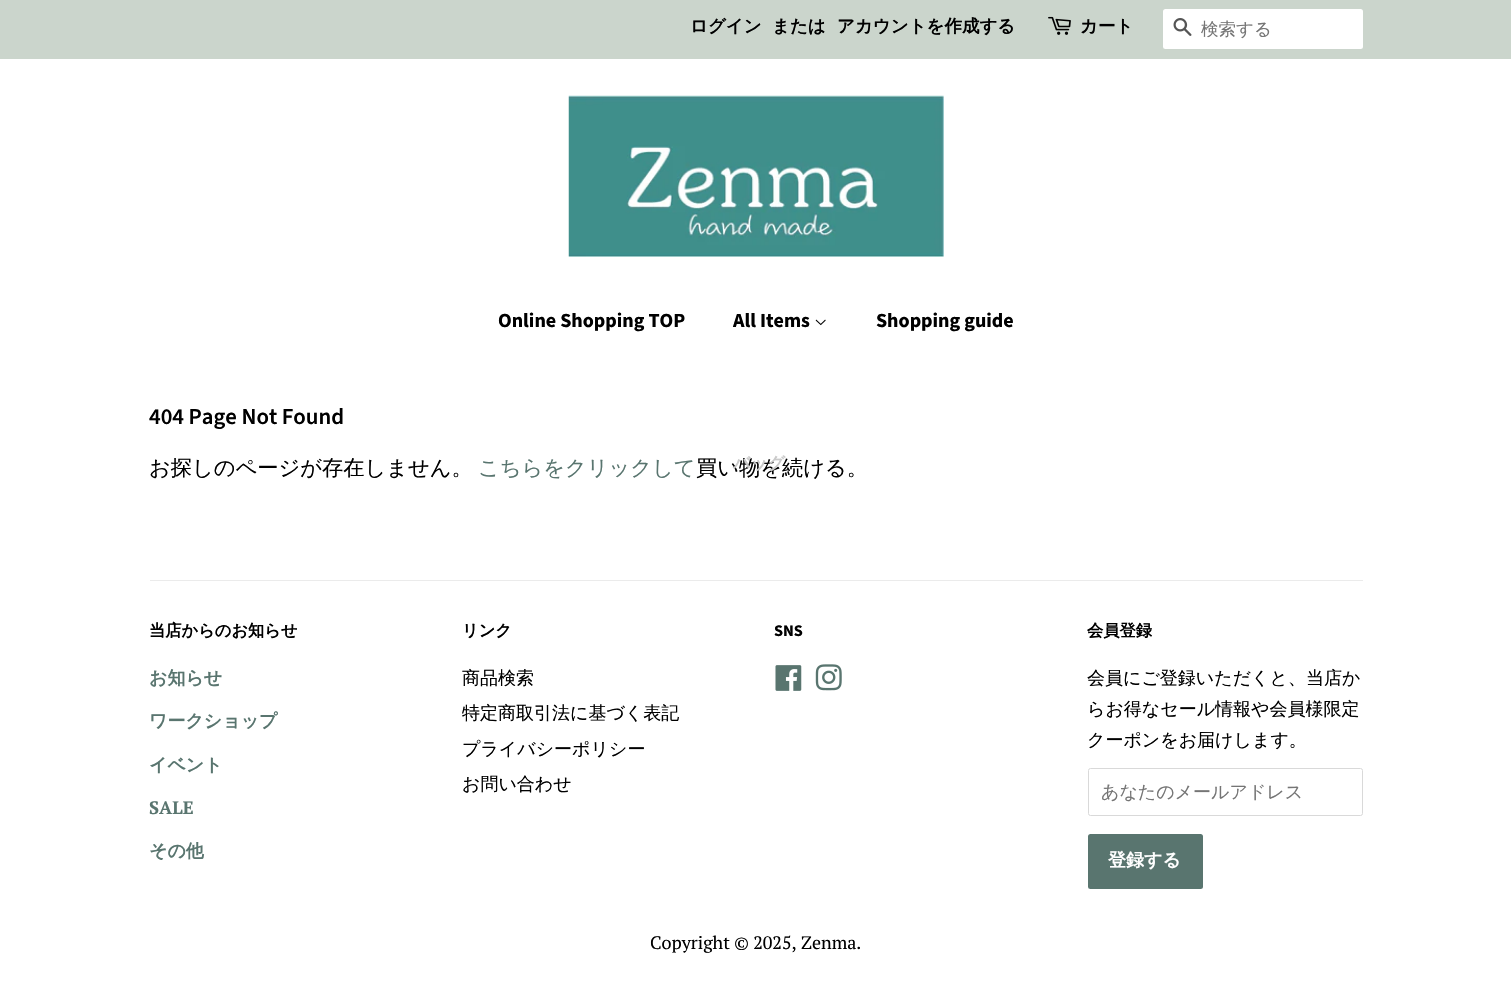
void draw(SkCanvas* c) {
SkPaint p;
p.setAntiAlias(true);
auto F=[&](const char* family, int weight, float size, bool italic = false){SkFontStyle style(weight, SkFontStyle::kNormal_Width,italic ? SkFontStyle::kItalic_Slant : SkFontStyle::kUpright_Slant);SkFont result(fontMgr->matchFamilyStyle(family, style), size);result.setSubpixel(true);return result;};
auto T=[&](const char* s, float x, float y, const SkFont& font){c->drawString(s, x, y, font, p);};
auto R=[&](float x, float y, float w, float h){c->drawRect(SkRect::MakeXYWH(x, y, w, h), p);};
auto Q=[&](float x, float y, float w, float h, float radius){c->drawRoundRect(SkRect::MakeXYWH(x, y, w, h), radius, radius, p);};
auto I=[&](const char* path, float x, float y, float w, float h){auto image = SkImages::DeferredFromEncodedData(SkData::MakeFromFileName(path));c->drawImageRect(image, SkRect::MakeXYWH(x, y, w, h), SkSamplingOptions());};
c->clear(0xffffffff);
p.setColor(0xffcbd5cc);
R(0,0,1511,59);
auto f1 = F("WenQuanYi Zen Hei",700,17.5);
p.setColor(0xff000000);
T("ログイン",690,32,f1);
T("または",772,32,f1);
T("アカウントを作成する",837,32,f1);
I("1.png",1048,16,23,19);
T("カート",1080,32,f1);
p.setColor(0xffffffff);
Q(1163,9,200,40,2.5);
I("2.png",1173,18,19,18);
auto f2 = F("WenQuanYi Zen Hei",500,17.5);
p.setColor(0xff757575);
T("検索する",1201,35,f2);
I("3.png",568,95,376,162);
auto f3 = F("Source Sans Pro",700,20);
p.setColor(0xff000000);
T("Online Shopping TOP",498,327,f3);
T("All Items",733,327,f3);
I("4.png",815,319,11,7);
auto f4 = F("WenQuanYi Zen Hei",500,21.25);
T("買い物を続ける。",696,475,f4);
auto f5 = F("WenQuanYi Zen Hei",700,17);
p.setColor(0xffcacaca);
T("バッグ",733,469,f5);
p.setColor(0xff000000);
T("Shopping guide",876,327,f3);
auto f6 = F("Source Sans Pro",600,22.75);
T("404 Page Not Found",149,424,f6);
T("お探しのページが存在しません。",149,475,f4);
p.setColor(0xff59756f);
T("こちらをクリックして",478,475,f4);
p.setColor(0xffebebeb);
R(150,580,1213,1);
auto f7 = F("WenQuanYi Zen Hei",700,16.25);
p.setColor(0xff000000);
T("当店からのお知らせ",149,636,f7);
auto f8 = F("WenQuanYi Zen Hei",700,18);
p.setColor(0xff59756f);
T("お知らせ",149,684,f8);
T("ワークショップ",149,727,f8);
T("イベント",149,771,f8);
auto f9 = F("PT Serif",700,18);
T("SALE",149,814,f9);
T("その他",149,857,f8);
p.setColor(0xff000000);
T("リンク",462,636,f7);
auto f10 = F("WenQuanYi Zen Hei",500,18);
T("商品検索",462,684,f10);
T("特定商取引法に基づく表記",462,719,f10);
T("プライバシーポリシー",462,755,f10);
T("お問い合わせ",462,790,f10);
auto f11 = F("Source Sans Pro",700,16.25);
T("SNS",774,636,f11);
I("5.png",775,665,27,26);
I("6.png",815,664,27,27);
T("会員登録",1087,636,f7);
T("会員にご登録いただくと、当店か",1087,684,f10);
T("らお得なセール情報や会員様限定",1087,715,f10);
T("クーポンをお届けします。",1087,746,f10);
p.setStroke(true);
p.setStrokeWidth(1);
p.setColor(0xffd9d9d9);
c->drawRoundRect(SkRect::MakeXYWH(1088.5,768.5,274,47),2,2,p);
p.setStroke(false);
p.setColor(0xff757575);
T("あなたのメールアドレス",1101,798,f10);
p.setColor(0xff59756f);
Q(1088,834,115,55,2.5);
p.setColor(0xffffffff);
T("登録する",1108,866,f8);
auto f12 = F("PT Serif",400,18);
p.setColor(0xff000000);
T("Copyright © 2025, Zenma.",650,949,f12);
}
